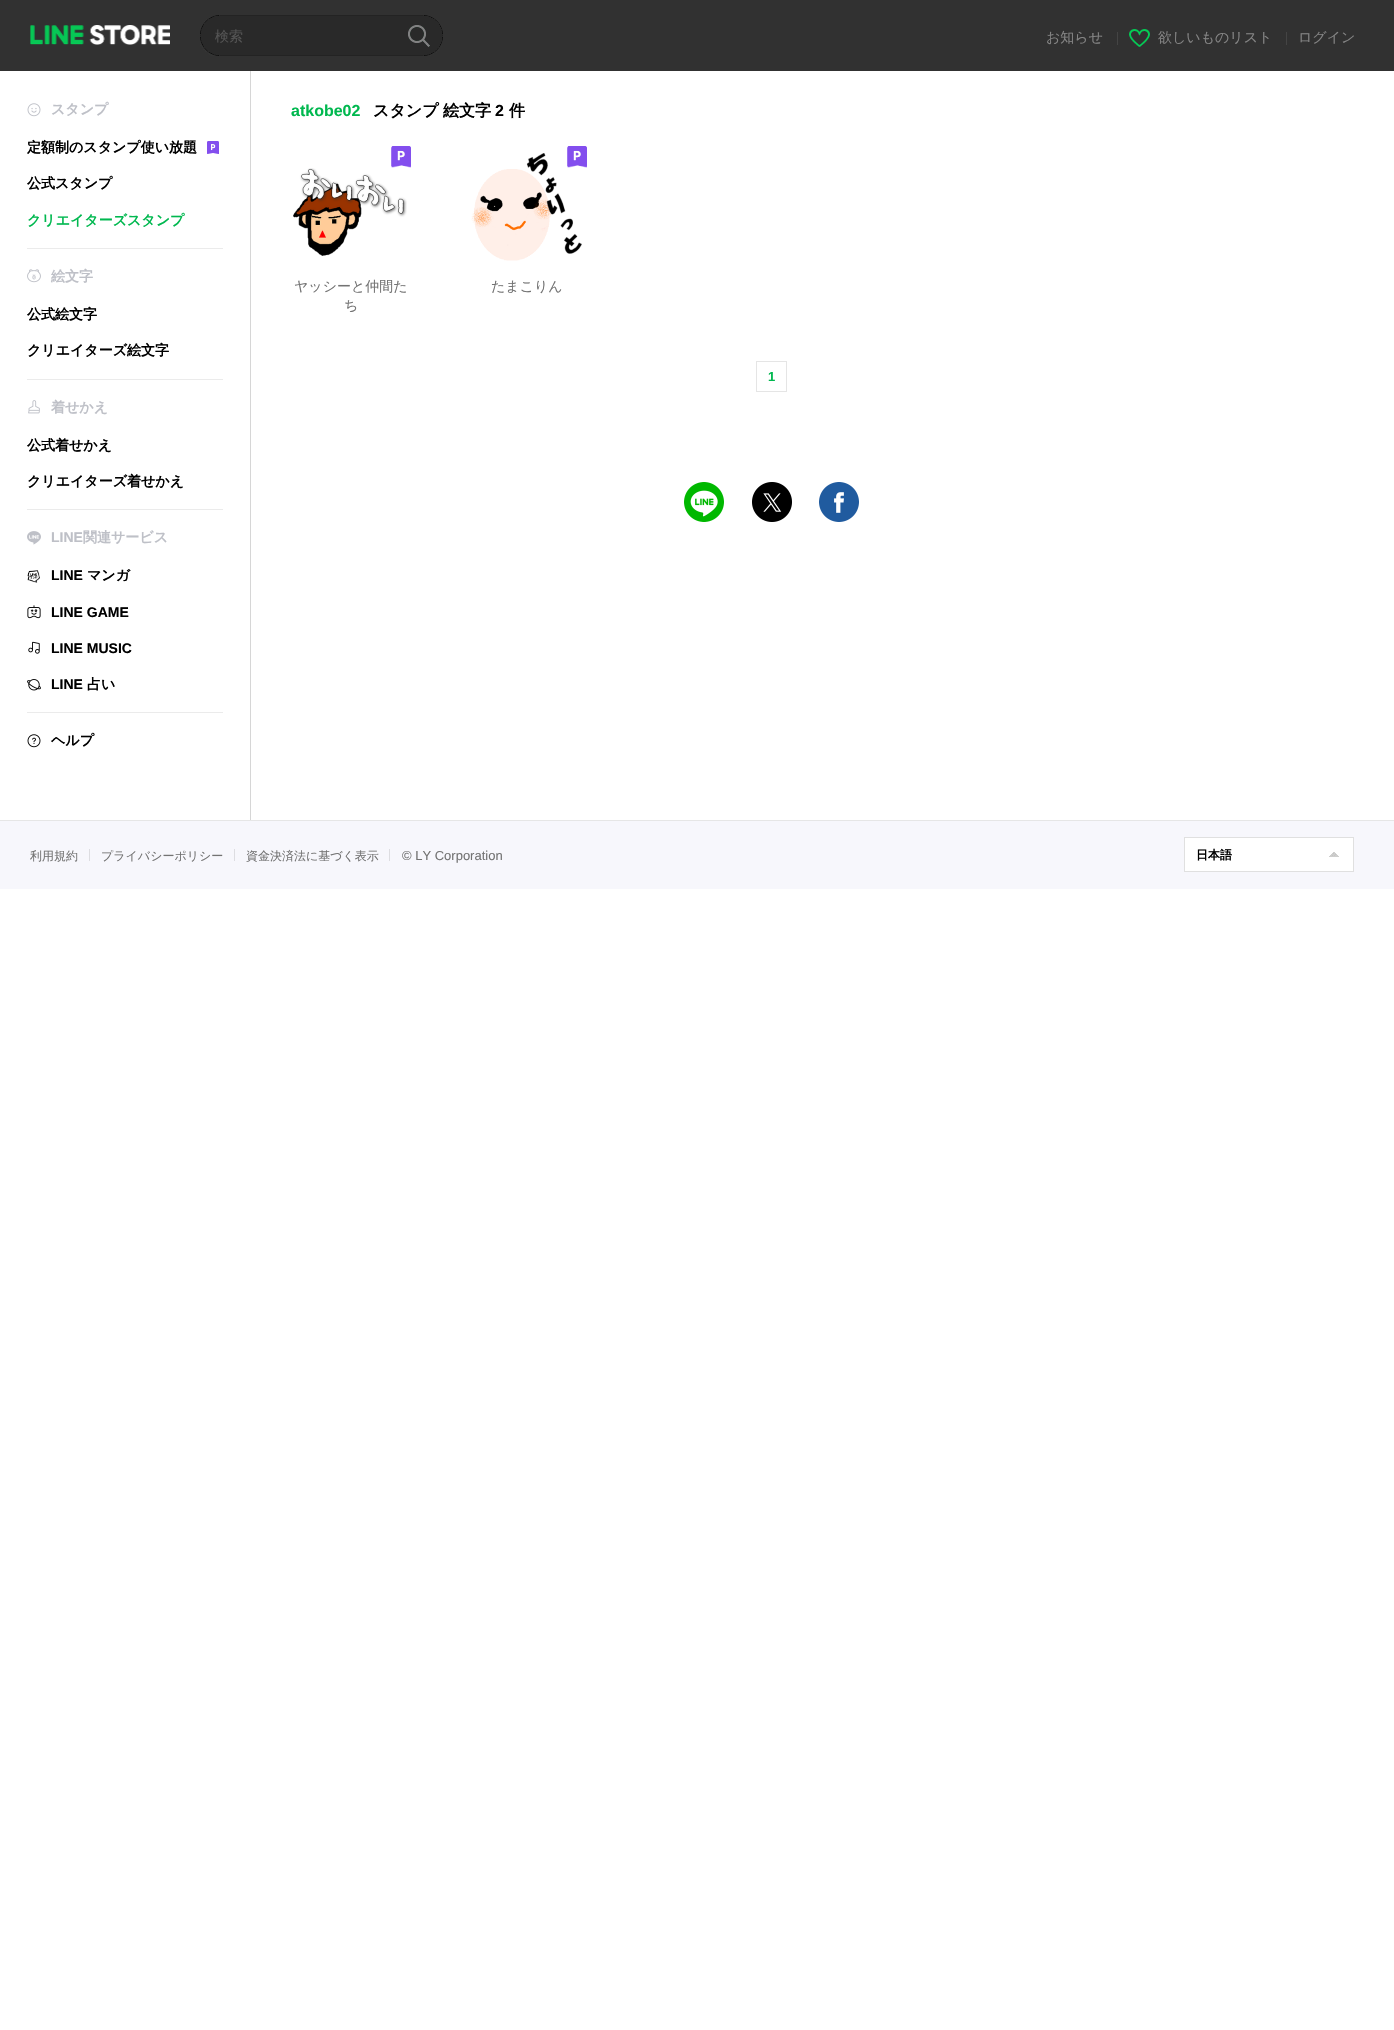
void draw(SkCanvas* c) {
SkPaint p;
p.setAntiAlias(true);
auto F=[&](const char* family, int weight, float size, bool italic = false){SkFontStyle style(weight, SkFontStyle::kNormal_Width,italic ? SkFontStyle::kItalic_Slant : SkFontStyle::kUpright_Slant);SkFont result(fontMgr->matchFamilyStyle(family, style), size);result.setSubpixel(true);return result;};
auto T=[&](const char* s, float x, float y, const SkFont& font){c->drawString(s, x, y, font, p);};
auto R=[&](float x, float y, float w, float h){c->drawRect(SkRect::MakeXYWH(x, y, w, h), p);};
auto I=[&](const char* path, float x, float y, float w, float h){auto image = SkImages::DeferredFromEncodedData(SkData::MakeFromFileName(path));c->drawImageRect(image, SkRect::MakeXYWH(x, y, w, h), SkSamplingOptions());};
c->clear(0xffffffff);
p.setColor(0xff313131);
R(0,0,1394,71);
I("1.png",30,25,140,20);
I("2.png",200,15,243,41);
auto f1 = F("WenQuanYi Zen Hei",500,14);
p.setColor(0xff545454);
T("検索",215,41,f1);
I("3.png",408,25,22,22);
p.setColor(0xff848484);
T("お知らせ",1046,42,f1);
p.setColor(0xff444444);
R(1117,32,1,13);
I("4.png",1129,29,21,18);
p.setColor(0xff848484);
T("欲しいものリスト",1158,42,f1);
p.setColor(0xff444444);
R(1286,32,1,13);
p.setColor(0xff848484);
T("ログイン",1298,42,f1);
I("5.png",27,103,14,14);
auto f2 = F("WenQuanYi Zen Hei",700,14);
p.setColor(0xffbec0c7);
T("スタンプ",51,114,f2);
p.setColor(0xff000000);
T("定額制のスタンプ使い放題",27,152,f2);
I("6.png",207,141,12,13);
T("公式スタンプ",27,188,f2);
p.setColor(0xff00b84f);
T("クリエイターズスタンプ",27,225,f2);
p.setColor(0xffebebeb);
R(27,248,196,1);
I("7.png",27,269,14,14);
p.setColor(0xffbec0c7);
T("絵文字",51,281,f2);
p.setColor(0xff000000);
T("公式絵文字",27,319,f2);
T("クリエイターズ絵文字",27,355,f2);
p.setColor(0xffebebeb);
R(27,379,196,1);
I("8.png",28,400,12,14);
p.setColor(0xffbec0c7);
T("着せかえ",51,412,f2);
p.setColor(0xff000000);
T("公式着せかえ",27,450,f2);
T("クリエイターズ着せかえ",27,486,f2);
p.setColor(0xffebebeb);
R(27,509,196,1);
I("9.png",27,531,14,14);
auto f3 = F("Liberation Sans",700,14);
p.setColor(0xffbec0c7);
T("LINE",51,542,f3);
T("関連サービス",83,542,f2);
I("10.png",27,570,13,13);
p.setColor(0xff000000);
T("LINE",51,580,f3);
T("マンガ",87,580,f2);
I("11.png",27,605,14,14);
T("LINE GAME",51,617,f3);
I("12.png",28,641,12,13);
T("LINE MUSIC",51,653,f3);
I("13.png",27,679,14,12);
T("LINE",51,689,f3);
T("占い",87,689,f2);
p.setColor(0xffebebeb);
R(27,712,196,1);
I("14.png",27,734,14,14);
p.setColor(0xff000000);
T("ヘルプ",51,745,f2);
p.setColor(0xffd6d6d6);
R(250,71,1,749);
auto f4 = F("Liberation Sans",700,16);
p.setColor(0xff00b84f);
T("atkobe02",291,116,f4);
auto f5 = F("WenQuanYi Zen Hei",700,16);
p.setColor(0xff000000);
T("スタンプ",373,116,f5);
T("絵文字",443,116,f5);
T("2",495,116,f4);
T("件",509,116,f5);
I("15.png",391,146,20,22);
I("16.png",391,146,20,21);
I("17.png",293,168,114,88);
p.setColor(0xff737373);
T("ヤッシーと仲間た",294,291,f1);
T("ち",344,310,f1);
I("18.png",471,153,111,108);
I("15.png",567,146,20,22);
I("16.png",567,146,20,21);
T("たまこりん",491,291,f1);
p.setStroke(true);
p.setStrokeWidth(1);
p.setColor(0xffe5e5e5);
c->drawRect(SkRect::MakeXYWH(756.5,361.5,30,30),p);
auto f6 = F("Liberation Sans",700,13);
p.setStroke(false);
p.setColor(0xff00b84f);
T("1",768,381,f6);
I("19.png",684,482,40,40);
I("20.png",752,482,40,40);
I("21.png",819,482,40,40);
p.setColor(0xfff7f7fc);
R(0,821,1394,68);
p.setColor(0xffe6e6e6);
R(0,820,1394,1);
auto f7 = F("WenQuanYi Zen Hei",500,12);
p.setColor(0xff737373);
T("利用規約",30,860,f7);
p.setColor(0xffdddde1);
R(89,849,1,12);
p.setColor(0xff737373);
T("プライバシーポリシー",101,860,f7);
p.setColor(0xffdddde1);
R(234,849,1,12);
p.setColor(0xff737373);
T("資金決済法に基づく表示",246,860,f7);
p.setColor(0xffdddde1);
R(389,849,1,12);
auto f8 = F("Liberation Sans",400,13);
p.setColor(0xff737373);
T("© LY Corporation",402,860,f8);
p.setColor(0xffffffff);
c->drawRect(SkRect::MakeXYWH(1184.5,837.5,169,34),p);
p.setStroke(true);
p.setColor(0xffe0e0e0);
c->drawRect(SkRect::MakeXYWH(1184.5,837.5,169,34),p);
auto f9 = F("WenQuanYi Zen Hei",700,12);
p.setStroke(false);
p.setColor(0xff000000);
T("日本語",1196,859,f9);
I("22.png",1329,852,10,5);
}
